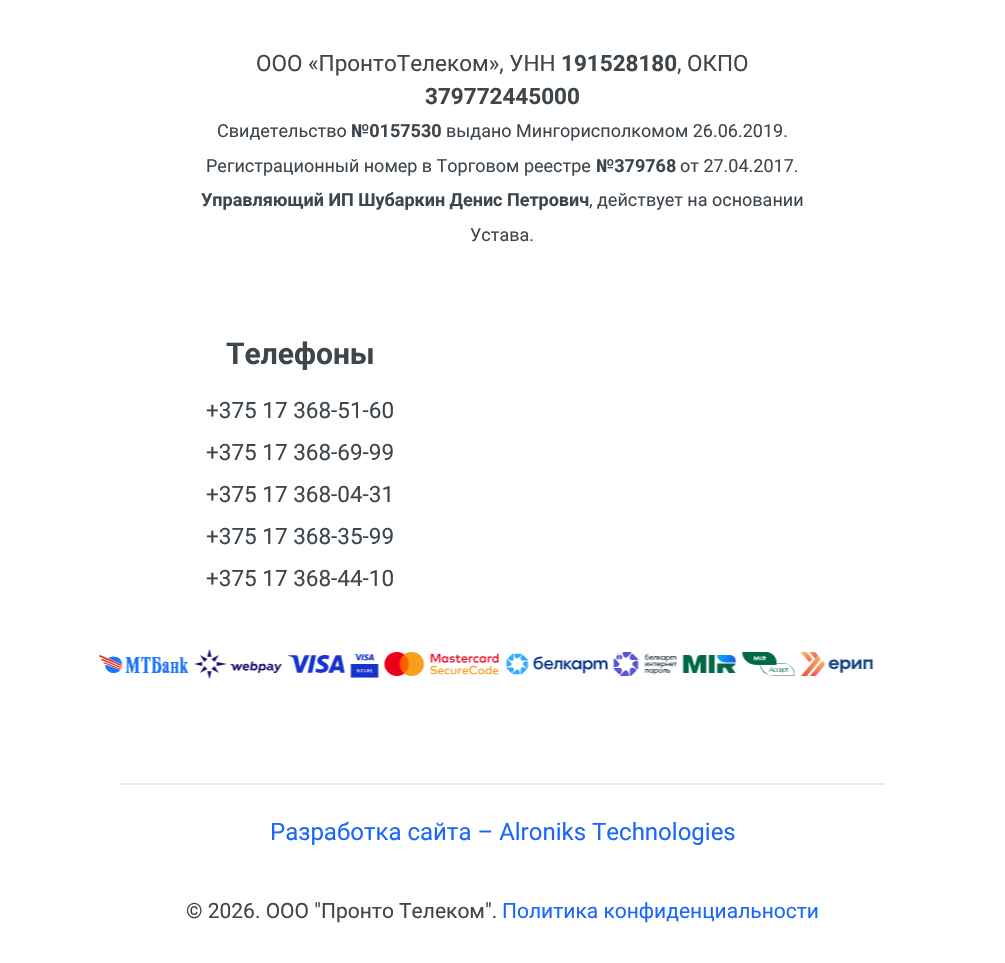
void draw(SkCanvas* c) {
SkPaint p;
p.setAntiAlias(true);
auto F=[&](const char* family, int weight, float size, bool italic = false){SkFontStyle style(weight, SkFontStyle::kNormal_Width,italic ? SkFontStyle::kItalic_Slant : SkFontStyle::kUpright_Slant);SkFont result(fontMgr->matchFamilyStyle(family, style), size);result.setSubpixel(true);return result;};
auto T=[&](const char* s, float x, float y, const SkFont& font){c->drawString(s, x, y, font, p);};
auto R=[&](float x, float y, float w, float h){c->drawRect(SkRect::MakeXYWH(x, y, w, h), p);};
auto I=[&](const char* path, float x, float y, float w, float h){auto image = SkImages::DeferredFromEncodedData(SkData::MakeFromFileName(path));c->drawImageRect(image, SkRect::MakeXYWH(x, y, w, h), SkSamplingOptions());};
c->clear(0xffffffff);
auto f1 = F("Roboto",400,22.5);
p.setColor(0xff3d464d);
T("ООО «ПронтоТелеком», УНН",256,71,f1);
auto f2 = F("Roboto",700,22.5);
T("191528180",561,71,f2);
T(", ОКПО",677,71,f1);
T("379772445000",425,104,f2);
auto f3 = F("Roboto",400,18);
T("Свидетельство",217,137,f3);
auto f4 = F("Roboto",700,18);
T("№0157530",351,137,f4);
T("выдано Мингорисполкомом 26.06.2019.",446,137,f3);
T("Регистрационный номер в Торговом реестре",206,172,f3);
T("№379768",596,172,f4);
T("от 27.04.2017.",680,172,f3);
T("Управляющий ИП Шубаркин Денис Петрович",201,206,f4);
T(", действует на основании",589,206,f3);
T("Устава.",470,241,f3);
auto f5 = F("Roboto",700,30);
T("Телефоны",226,364,f5);
T("+375 17 368-51-60",206,418,f1);
T("+375 17 368-69-99",206,460,f1);
T("+375 17 368-04-31",206,502,f1);
T("+375 17 368-35-99",206,544,f1);
T("+375 17 368-44-10",206,586,f1);
I("1.png",98,649,776,30);
p.setColor(0xffebebeb);
R(120,783,765,2);
auto f6 = F("Roboto",400,24);
p.setColor(0xff1a66ff);
T("Разработка сайта – Alroniks Technologies",270,840,f6);
auto f7 = F("Roboto",400,21);
p.setColor(0xff3d464d);
T("© 2026. ООО \"Пронто Телеком\".",186,918,f7);
p.setColor(0xff1a66ff);
T("Политика конфиденциальности",502,918,f7);
}
